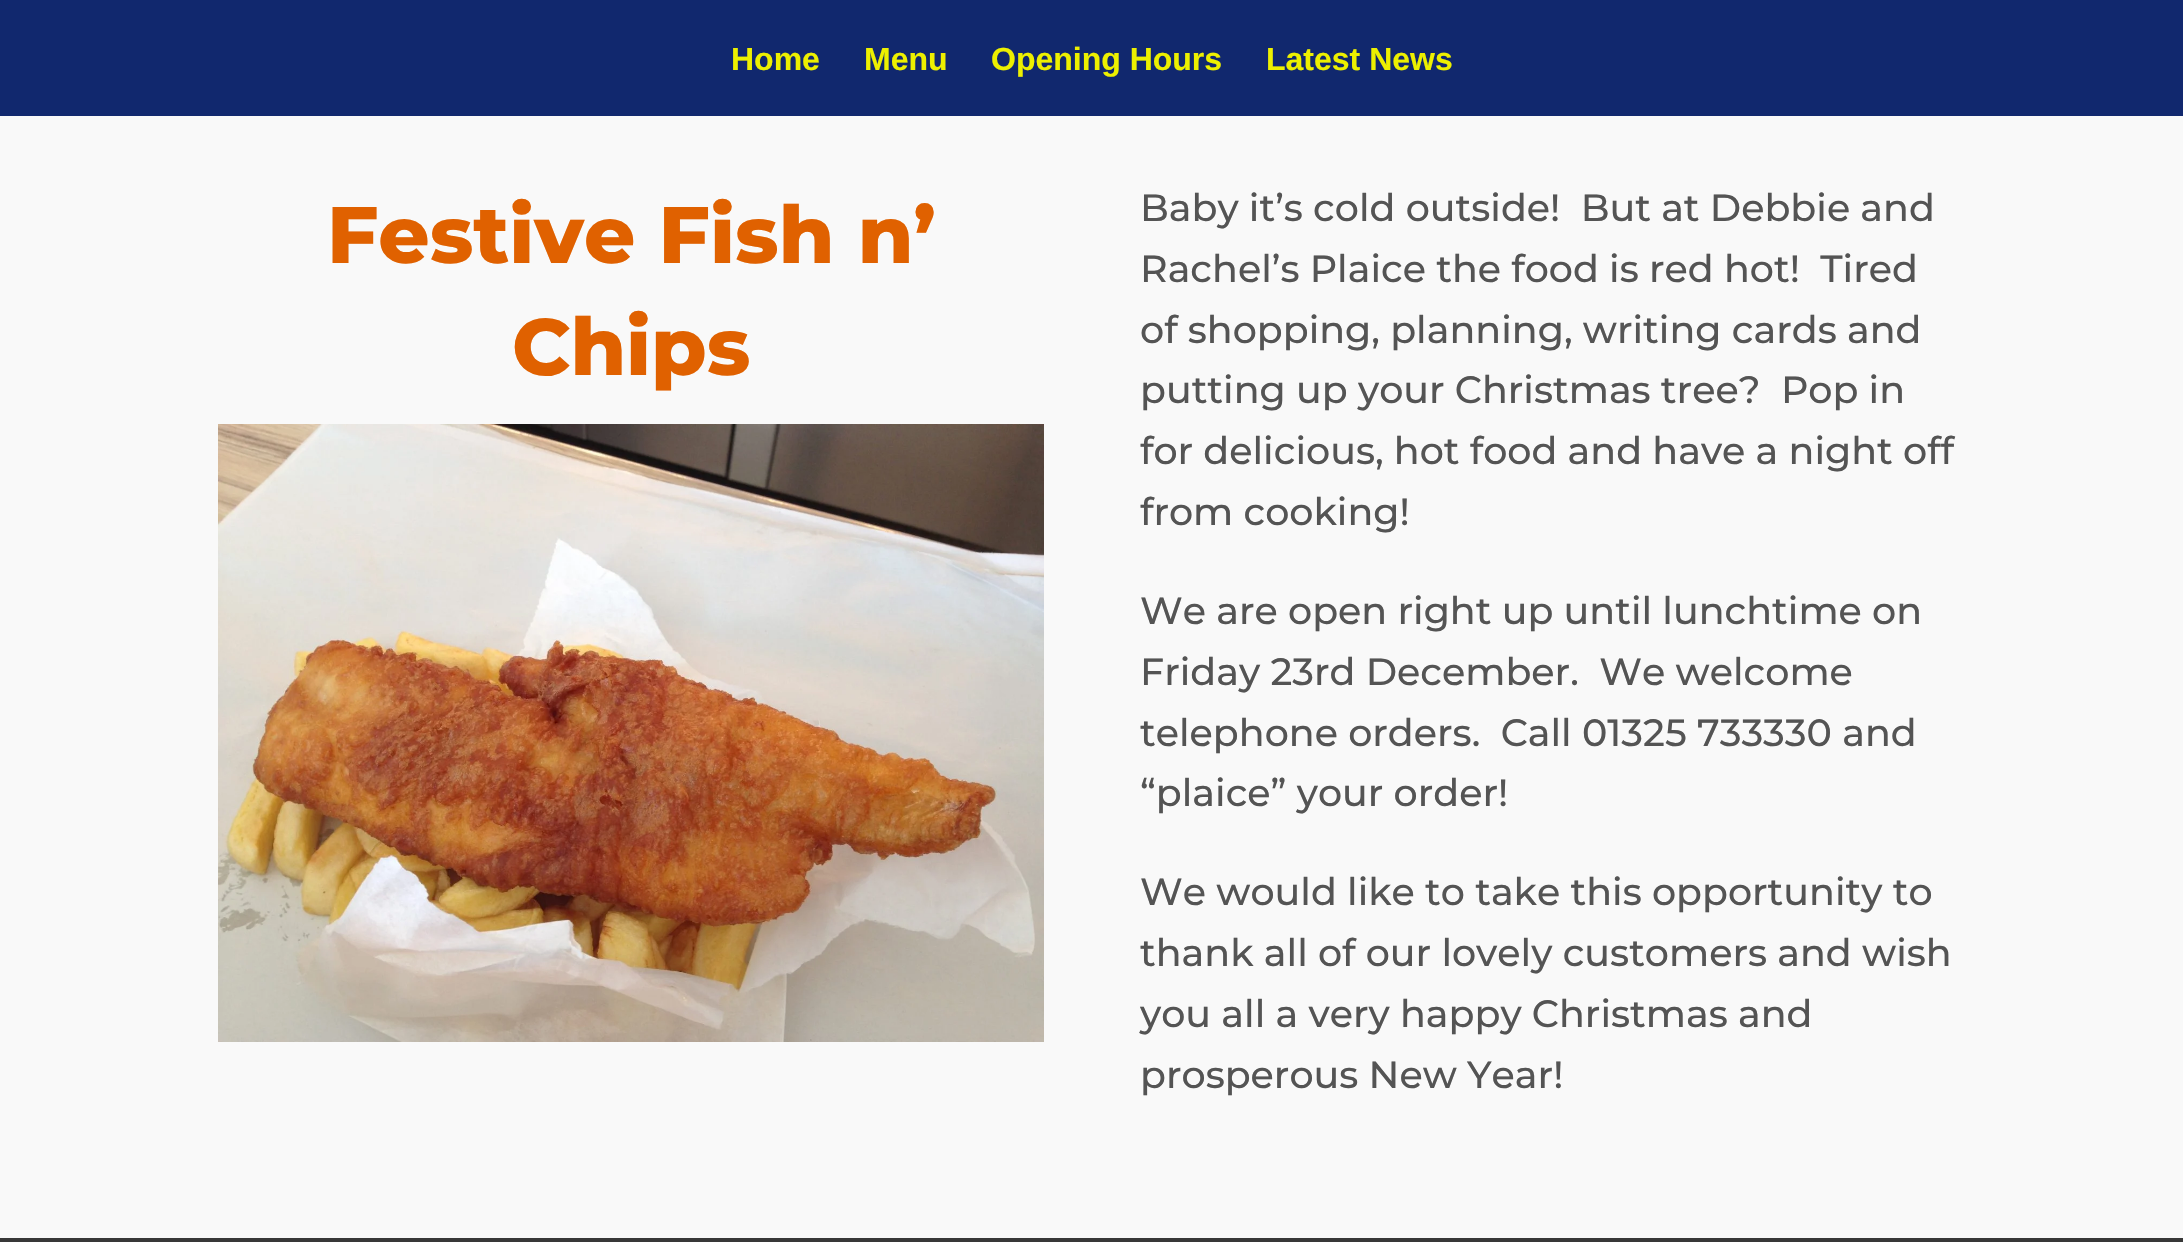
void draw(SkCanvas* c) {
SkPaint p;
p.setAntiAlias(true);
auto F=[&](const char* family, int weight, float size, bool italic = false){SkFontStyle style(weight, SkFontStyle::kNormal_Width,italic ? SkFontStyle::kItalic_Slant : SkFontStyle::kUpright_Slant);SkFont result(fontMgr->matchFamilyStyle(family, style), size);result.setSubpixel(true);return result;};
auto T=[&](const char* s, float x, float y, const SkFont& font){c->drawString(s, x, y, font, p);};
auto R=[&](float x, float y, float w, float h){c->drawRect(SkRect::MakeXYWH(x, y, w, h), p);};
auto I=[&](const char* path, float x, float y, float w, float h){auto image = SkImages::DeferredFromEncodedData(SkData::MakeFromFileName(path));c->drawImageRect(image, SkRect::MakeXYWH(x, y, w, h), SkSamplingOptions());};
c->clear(0xfff9f9f9);
p.setColor(0xff11286e);
R(0,0,2183,116);
auto f1 = F("Liberation Sans",700,32);
p.setColor(0xffedf000);
T("Home",731,70,f1);
T("Menu",864,70,f1);
T("Opening Hours",991,70,f1);
T("Latest News",1266,70,f1);
auto f2 = F("Montserrat",100,80);
p.setColor(0xffe06100);
T("Festive Fish n’",327,263,f2);
T("Chips",512,375,f2);
I("1.png",218,424,826,618);
auto f3 = F("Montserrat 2",100,38);
p.setColor(0xff545454);
T("Baby it’s cold outside!  But at Debbie and",1140,221,f3);
T("Rachel’s Plaice the food is red hot!  Tired",1140,282,f3);
T("of shopping, planning, writing cards and",1140,343,f3);
T("putting up your Christmas tree?  Pop in",1140,403,f3);
T("for delicious, hot food and have a night off",1140,464,f3);
T("from cooking!",1140,525,f3);
T("We are open right up until lunchtime on",1140,624,f3);
T("Friday 23rd December.  We welcome",1140,685,f3);
T("telephone orders.  Call 01325 733330 and",1140,746,f3);
T("“plaice” your order!",1140,806,f3);
T("We would like to take this opportunity to",1140,905,f3);
T("thank all of our lovely customers and wish",1140,966,f3);
T("you all a very happy Christmas and",1140,1027,f3);
T("prosperous New Year!",1140,1088,f3);
p.setColor(0xff383838);
R(0,1238,2183,4);
}
